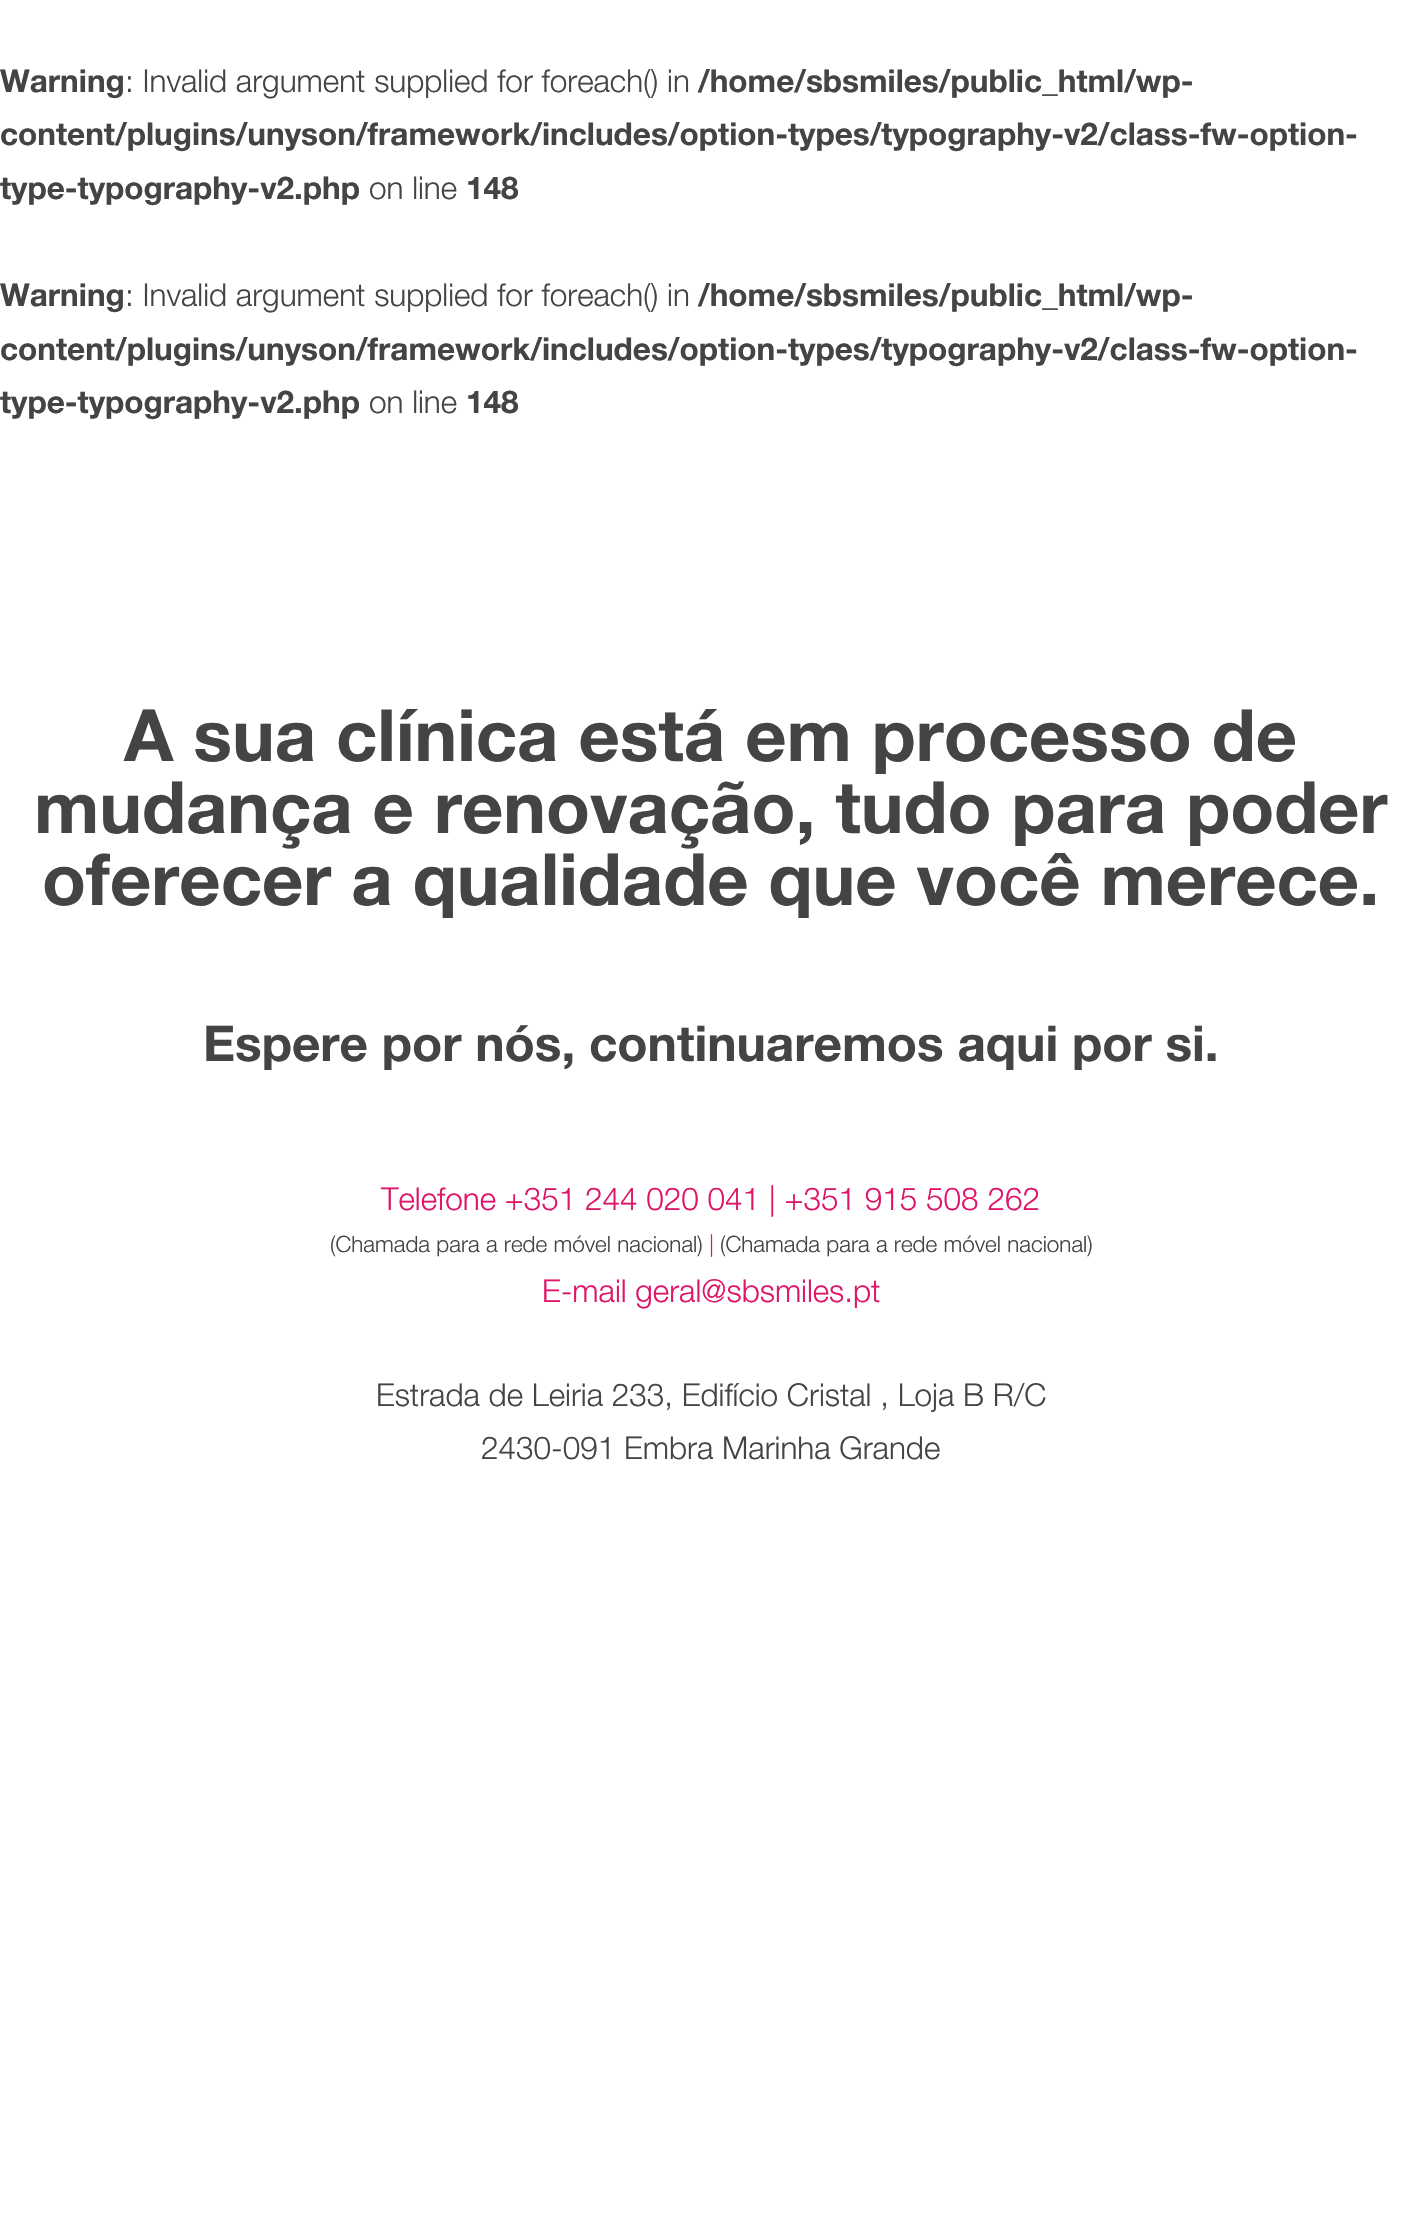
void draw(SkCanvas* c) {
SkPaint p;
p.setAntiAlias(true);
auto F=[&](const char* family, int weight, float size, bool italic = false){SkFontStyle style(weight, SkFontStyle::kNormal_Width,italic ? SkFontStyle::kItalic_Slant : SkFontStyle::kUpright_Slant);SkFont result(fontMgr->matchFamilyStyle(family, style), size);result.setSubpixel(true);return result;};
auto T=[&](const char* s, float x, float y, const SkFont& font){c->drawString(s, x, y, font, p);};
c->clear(0xffffffff);
auto f1 = F("Helvetica Neue",700,31.5);
p.setColor(0xff444444);
T("Warning",0,92,f1);
auto f2 = F("Helvetica Neue",300,31.5);
T(": Invalid argument supplied for foreach() in",125,92,f2);
T("/home/sbsmiles/public_html/wp-",698,92,f1);
T("content/plugins/unyson/framework/includes/option-types/typography-v2/class-fw-option-",0,145,f1);
T("type-typography-v2.php",0,199,f1);
T("on line",369,199,f2);
T("148",466,199,f1);
T("Warning",0,306,f1);
T(": Invalid argument supplied for foreach() in",125,306,f2);
T("/home/sbsmiles/public_html/wp-",698,306,f1);
T("content/plugins/unyson/framework/includes/option-types/typography-v2/class-fw-option-",0,360,f1);
T("type-typography-v2.php",0,413,f1);
T("on line",369,413,f2);
T("148",466,413,f1);
auto f3 = F("Helvetica Neue",700,72);
T("A sua clínica está em processo de",124,761,f3);
T("mudança e renovação, tudo para poder",34,833,f3);
T("oferecer a qualidade que você merece.",42,905,f3);
auto f4 = F("Helvetica Neue",700,49.5);
T("Espere por nós, continuaremos aqui por si.",203,1061,f4);
p.setColor(0xffdf1569);
T("Telefone +351 244 020 041 | +351 915 508 262",381,1210,f2);
auto f5 = F("Helvetica Neue",300,22.5);
p.setColor(0xff444444);
T("(Chamada para a rede móvel nacional)",330,1252,f5);
p.setColor(0xffdf1569);
T("|",709,1252,f5);
p.setColor(0xff444444);
T("(Chamada para a rede móvel nacional)",720,1252,f5);
p.setColor(0xffdf1569);
T("E-mail geral@sbsmiles.pt",542,1302,f2);
p.setColor(0xff444444);
T("Estrada de Leiria 233, Edifício Cristal , Loja B R/C",376,1406,f2);
T("2430-091 Embra Marinha Grande",481,1459,f2);
}
